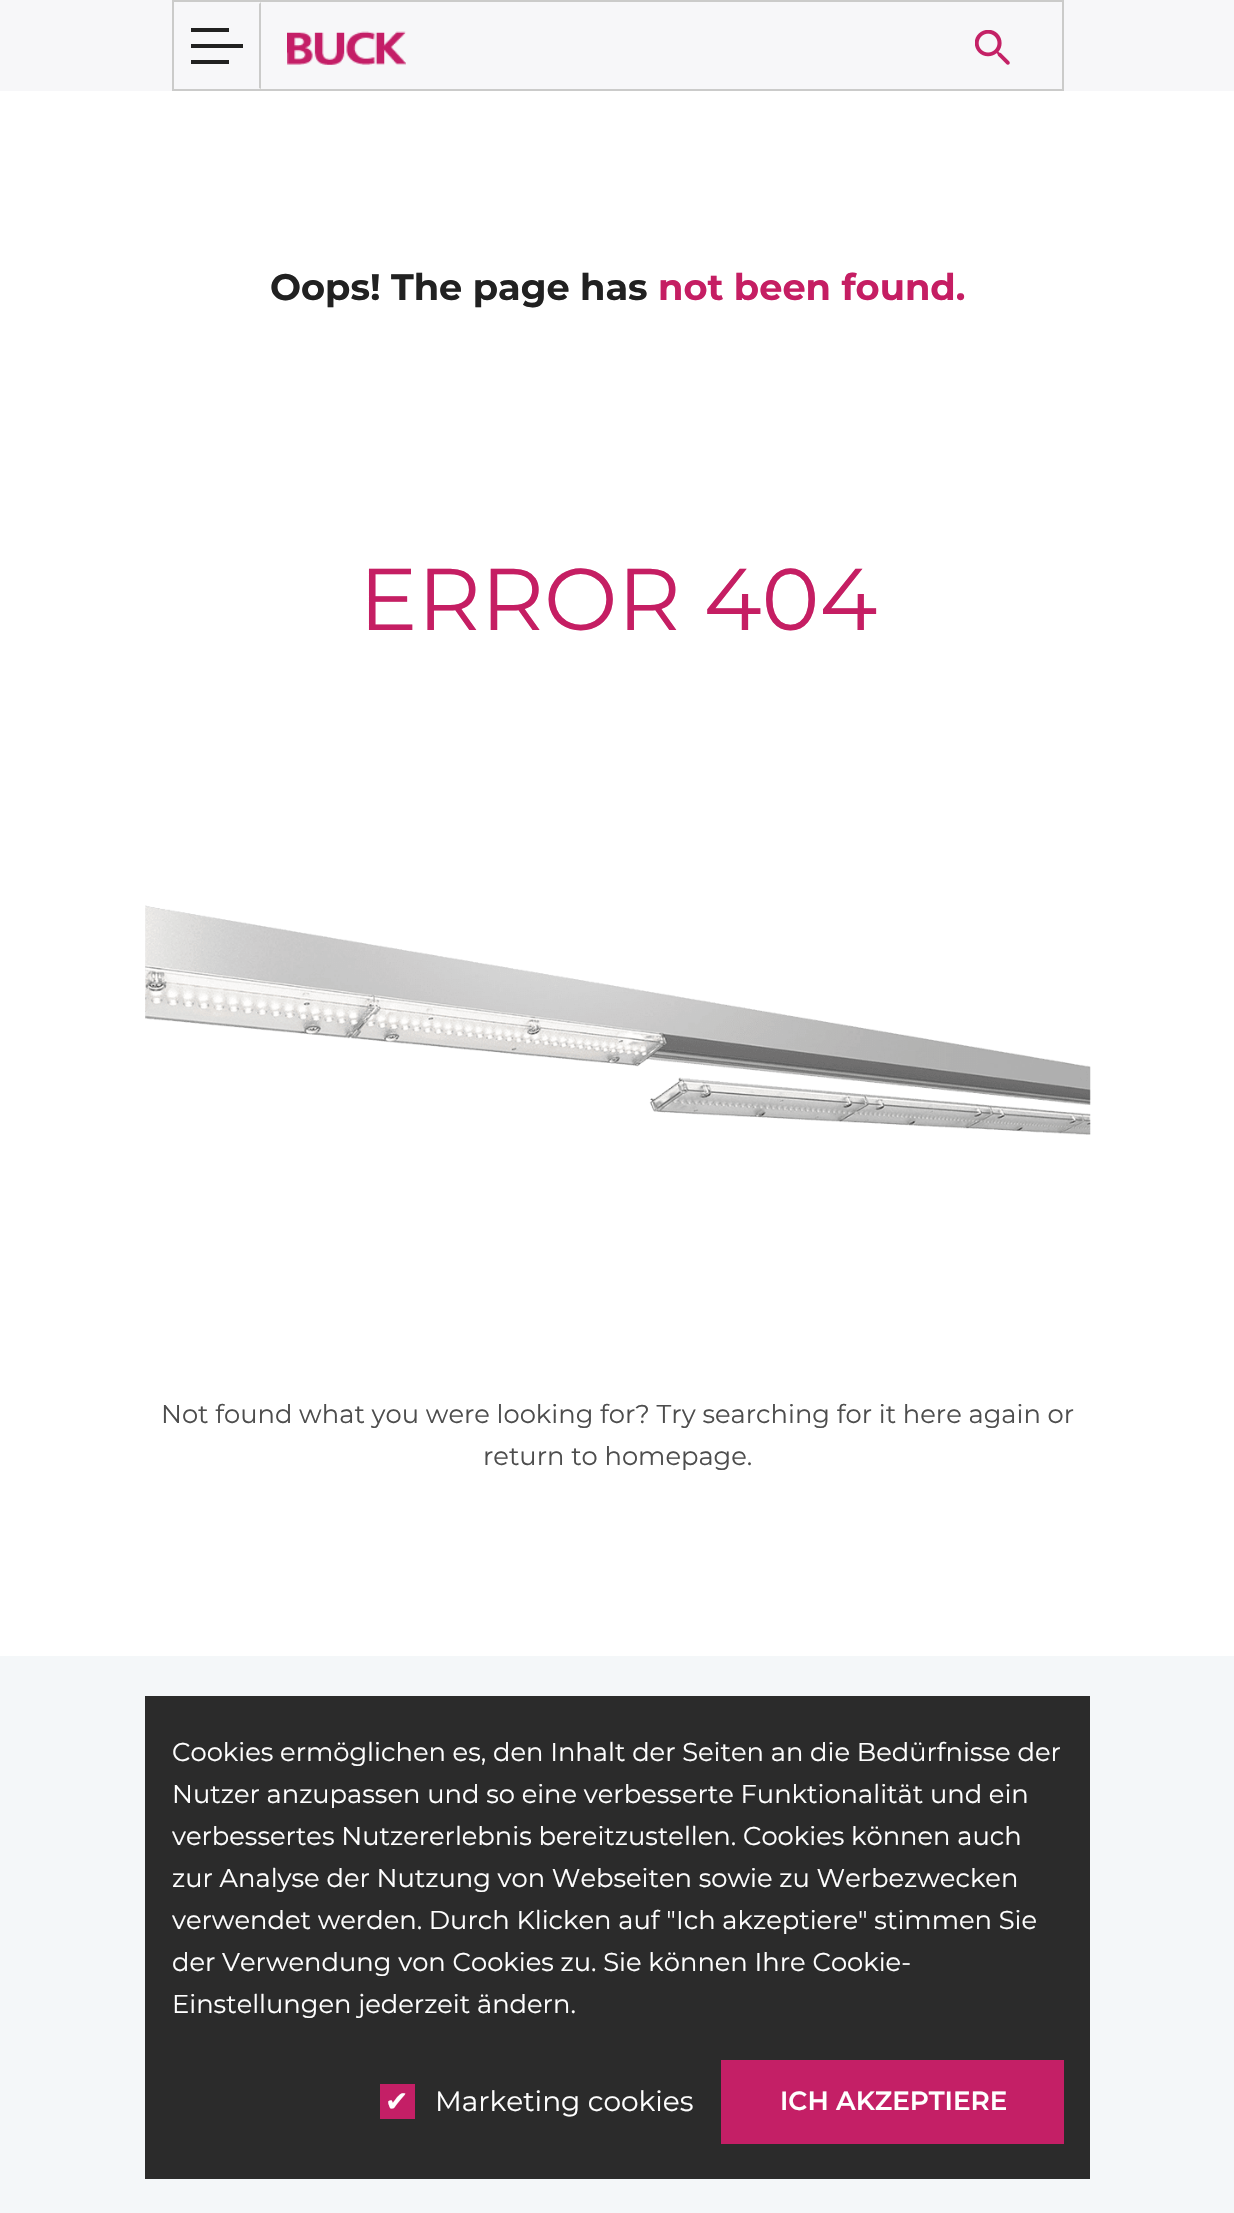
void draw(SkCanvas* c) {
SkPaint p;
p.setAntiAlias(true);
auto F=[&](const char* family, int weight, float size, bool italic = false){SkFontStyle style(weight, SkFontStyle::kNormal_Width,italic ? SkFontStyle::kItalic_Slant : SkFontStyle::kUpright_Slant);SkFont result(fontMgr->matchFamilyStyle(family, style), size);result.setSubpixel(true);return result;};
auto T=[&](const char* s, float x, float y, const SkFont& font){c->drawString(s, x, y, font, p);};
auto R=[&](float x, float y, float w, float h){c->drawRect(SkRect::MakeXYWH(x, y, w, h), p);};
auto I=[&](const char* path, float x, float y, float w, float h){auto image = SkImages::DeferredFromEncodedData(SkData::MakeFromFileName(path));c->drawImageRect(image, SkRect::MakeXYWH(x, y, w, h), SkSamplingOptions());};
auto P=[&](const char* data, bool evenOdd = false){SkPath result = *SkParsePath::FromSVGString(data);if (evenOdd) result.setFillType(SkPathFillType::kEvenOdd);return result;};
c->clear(0xffffffff);
p.setColor(0xfff7f7f9);
R(0,0,1234,91);
p.setStroke(true);
p.setStrokeWidth(2);
p.setColor(0xffcbcbca);
c->drawRect(SkRect::MakeXYWH(173,1,890,89),p);
p.setStroke(false);
c->drawPath(P("M261 2v87l-2-1v-84z"),p);
p.setColor(0xff212121);
R(191,28,38,4);
R(191,44,52,4);
R(191,60,38,4);
I("1.png",287,31,119,34);
I("2.png",975,30,35,35);
auto f1 = F("Montserrat",700,36.75);
T("Oops! The page has",270,300,f1);
p.setColor(0xffc51e63);
T("not been found.",658,300,f1);
auto f2 = F("Montserrat",400,87.5);
T("ERROR 404",359,630,f2);
I("3.png",145,905,946,230);
auto f3 = F("Montserrat",400,25.75);
p.setColor(0xff4d4d4d);
T("Not found what you were looking for? Try searching for it here again or",161,1423,f3);
T("return to homepage.",483,1465,f3);
p.setColor(0xfff4f7f9);
R(0,1656,1234,557);
p.setColor(0xff2b2b2b);
R(145,1696,945,483);
p.setColor(0xffffffff);
T("Cookies ermöglichen es, den Inhalt der Seiten an die Bedürfnisse der",172,1761,f3);
T("Nutzer anzupassen und so eine verbesserte Funktionalität und ein",172,1803,f3);
T("verbessertes Nutzererlebnis bereitzustellen. Cookies können auch",172,1845,f3);
T("zur Analyse der Nutzung von Webseiten sowie zu Werbezwecken",172,1887,f3);
T("verwendet werden. Durch Klicken auf \"Ich akzeptiere\" stimmen Sie",172,1929,f3);
T("der Verwendung von Cookies zu. Sie können Ihre Cookie-",172,1971,f3);
T("Einstellungen jederzeit ändern.",172,2013,f3);
p.setColor(0xffc41f66);
R(380,2084,35,35);
auto f4 = F("DejaVu Sans",400,28);
p.setColor(0xffffffff);
T("✔",385,2111,f4);
auto f5 = F("Montserrat",400,28);
T("Marketing cookies",435,2111,f5);
p.setColor(0xffc41f66);
R(721,2060,343,84);
auto f6 = F("Montserrat",600,26.25);
p.setColor(0xffffffff);
T("ICH AKZEPTIERE",780,2110,f6);
}
